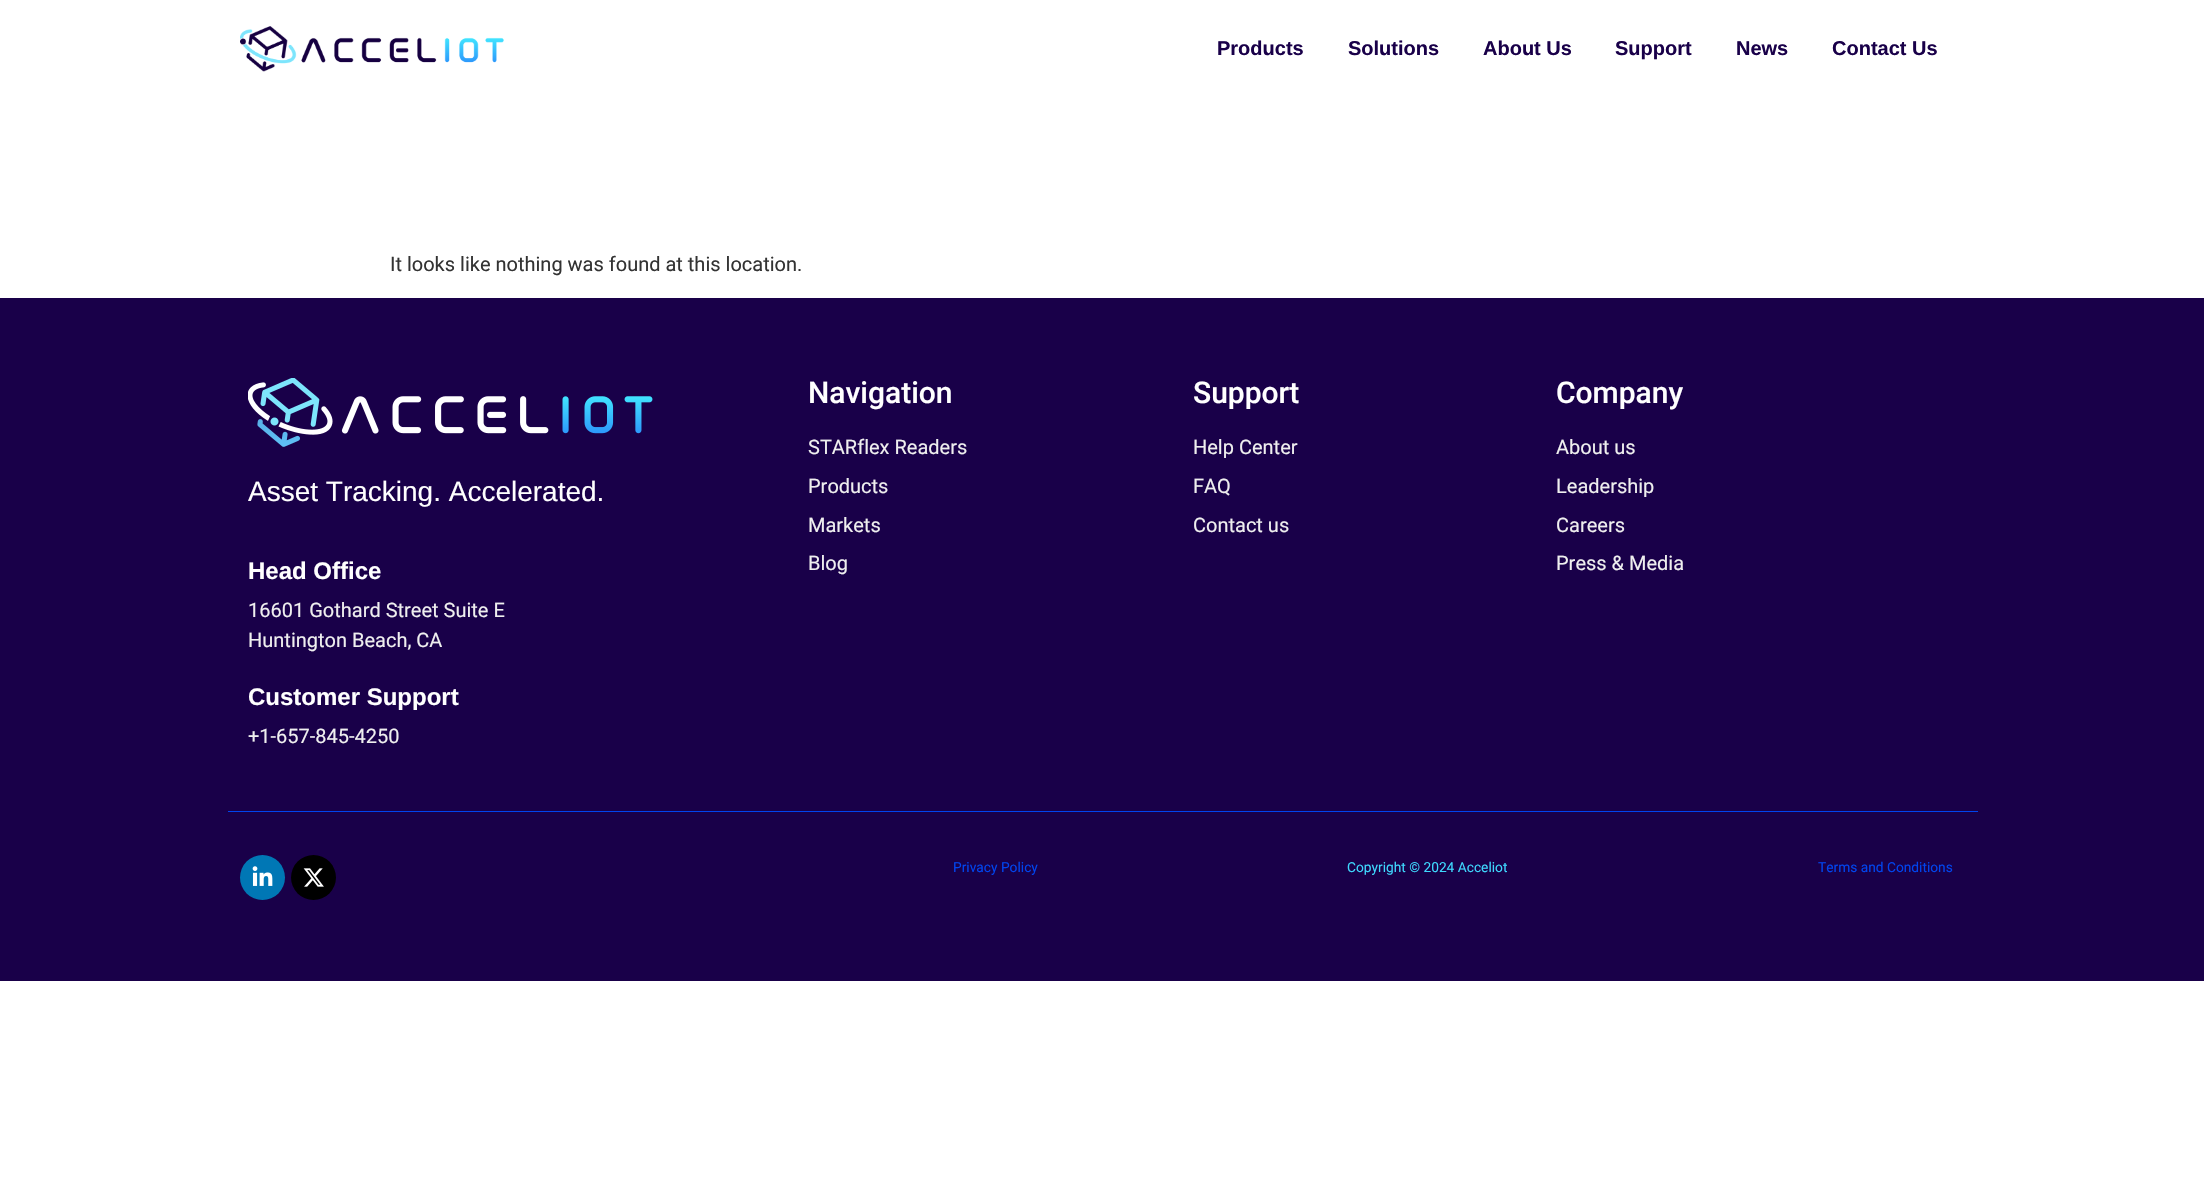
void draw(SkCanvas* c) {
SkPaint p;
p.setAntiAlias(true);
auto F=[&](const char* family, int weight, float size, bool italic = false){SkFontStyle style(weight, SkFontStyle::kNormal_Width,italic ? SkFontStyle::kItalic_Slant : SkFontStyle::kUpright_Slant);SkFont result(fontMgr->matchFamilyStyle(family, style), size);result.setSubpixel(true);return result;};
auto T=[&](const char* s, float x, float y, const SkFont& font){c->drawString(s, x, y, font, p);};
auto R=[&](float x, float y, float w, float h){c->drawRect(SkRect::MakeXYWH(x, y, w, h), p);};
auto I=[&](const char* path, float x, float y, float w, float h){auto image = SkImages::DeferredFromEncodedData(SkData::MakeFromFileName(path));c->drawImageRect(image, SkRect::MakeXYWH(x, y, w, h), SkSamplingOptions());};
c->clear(0xffffffff);
I("1.png",240,26,264,46);
auto f1 = F("Liberation Sans",700,20);
p.setColor(0xff190049);
T("Products",1217,55,f1);
T("Solutions",1348,55,f1);
T("About Us",1483,55,f1);
T("Support",1615,55,f1);
T("News",1736,55,f1);
T("Contact Us",1832,55,f1);
auto f2 = F("Roboto",400,20);
p.setColor(0xff333333);
T("It looks like nothing was found at this location.",390,271,f2);
p.setColor(0xff190049);
R(0,298,2204,683);
p.setColor(0xff0044ee);
R(228,811,1750,1);
I("2.png",248,378,405,69);
auto f3 = F("Liberation Sans",400,28);
p.setColor(0xffffffff);
T("Asset Tracking. Accelerated.",248,501,f3);
auto f4 = F("Liberation Sans",700,24);
T("Head Office",248,579,f4);
p.setColor(0xffefefef);
T("16601 Gothard Street Suite E",248,617,f2);
T("Huntington Beach, CA",248,647,f2);
p.setColor(0xffffffff);
T("Customer Support",248,705,f4);
p.setColor(0xffefefef);
T("+1-657-845-4250",248,743,f2);
auto f5 = F("Roboto",500,30);
p.setColor(0xffffffff);
T("Navigation",808,403,f5);
p.setColor(0xffefefef);
T("STARflex Readers",808,454,f2);
T("Products",808,493,f2);
T("Markets",808,532,f2);
T("Blog",808,570,f2);
p.setColor(0xffffffff);
T("Support",1193,403,f5);
p.setColor(0xffefefef);
T("Help Center",1193,454,f2);
T("FAQ",1193,493,f2);
T("Contact us",1193,532,f2);
p.setColor(0xffffffff);
T("Company",1556,403,f5);
p.setColor(0xffefefef);
T("About us",1556,454,f2);
T("Leadership",1556,493,f2);
T("Careers",1556,532,f2);
T("Press & Media",1556,570,f2);
p.setColor(0xff0077b5);
c->drawCircle(262.5,877.5,22.5,p);
I("3.png",252,866,21,20);
p.setColor(0xff000000);
c->drawCircle(313.5,877.5,22.5,p);
I("4.png",303,868,21,19);
auto f6 = F("Roboto",400,13.75);
p.setColor(0xff0044ee);
T("Privacy Policy",953,872,f6);
p.setColor(0xff3ed8fe);
T("Copyright © 2024 Acceliot",1347,872,f6);
p.setColor(0xff0044ee);
T("Terms and Conditions",1818,872,f6);
}
